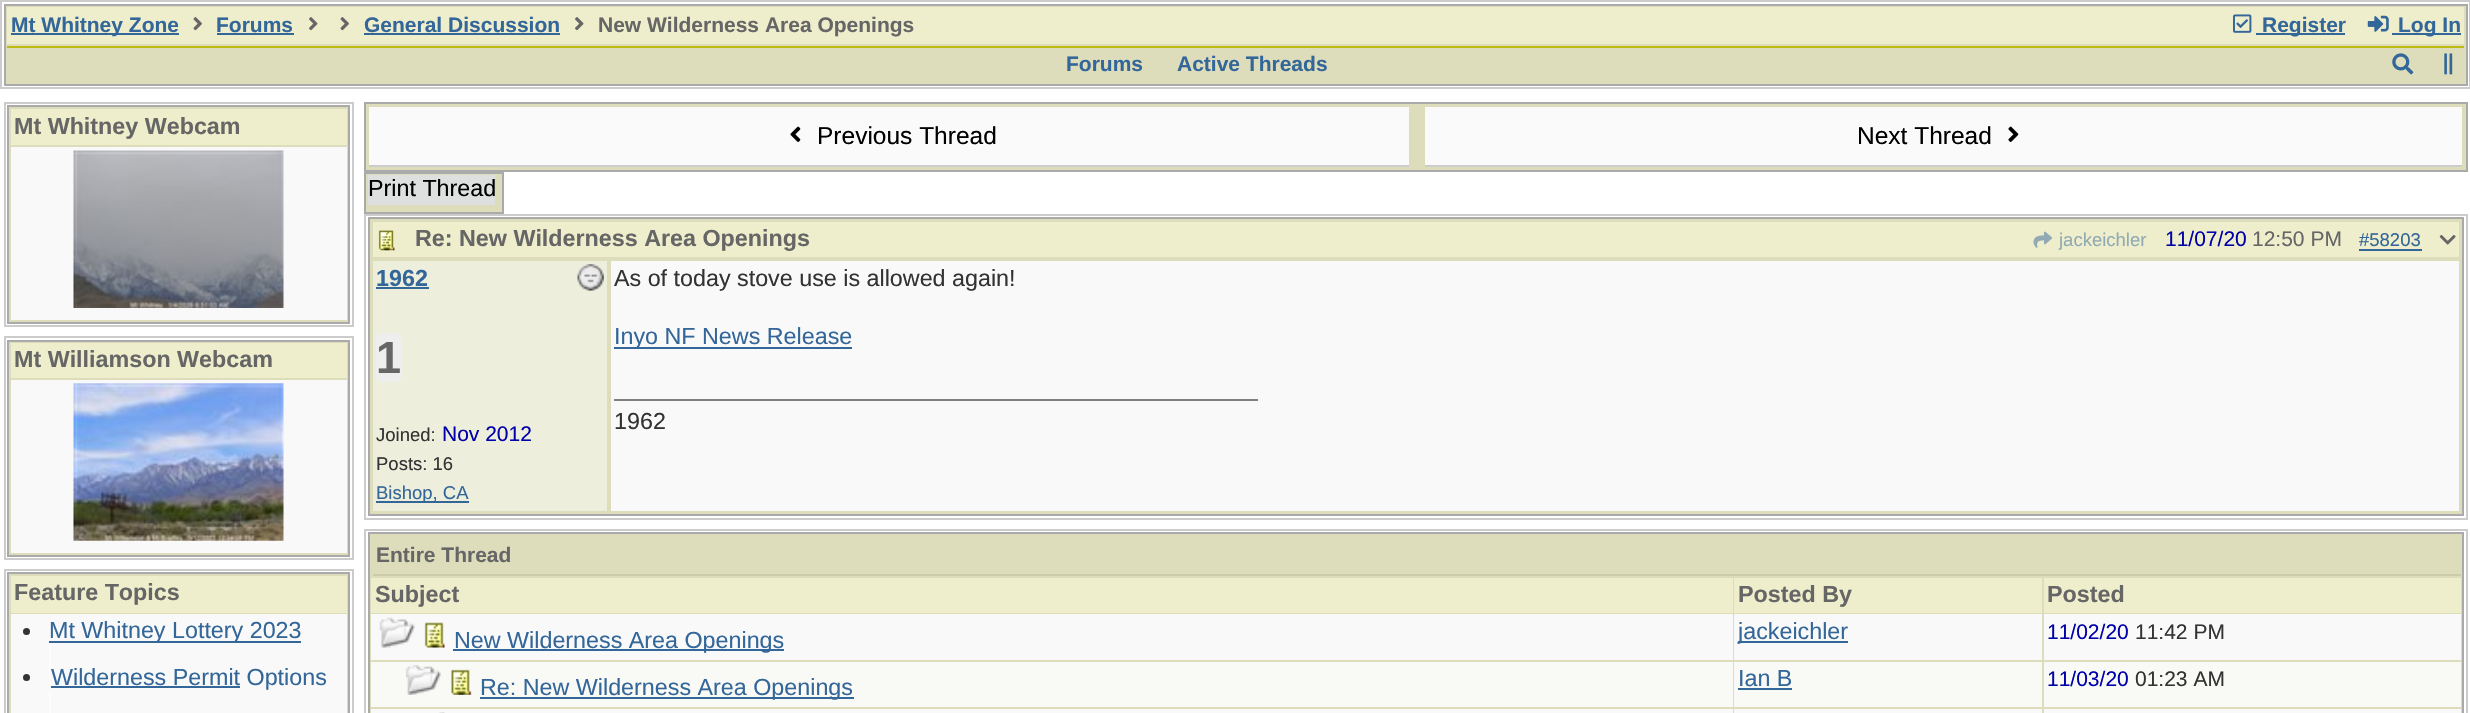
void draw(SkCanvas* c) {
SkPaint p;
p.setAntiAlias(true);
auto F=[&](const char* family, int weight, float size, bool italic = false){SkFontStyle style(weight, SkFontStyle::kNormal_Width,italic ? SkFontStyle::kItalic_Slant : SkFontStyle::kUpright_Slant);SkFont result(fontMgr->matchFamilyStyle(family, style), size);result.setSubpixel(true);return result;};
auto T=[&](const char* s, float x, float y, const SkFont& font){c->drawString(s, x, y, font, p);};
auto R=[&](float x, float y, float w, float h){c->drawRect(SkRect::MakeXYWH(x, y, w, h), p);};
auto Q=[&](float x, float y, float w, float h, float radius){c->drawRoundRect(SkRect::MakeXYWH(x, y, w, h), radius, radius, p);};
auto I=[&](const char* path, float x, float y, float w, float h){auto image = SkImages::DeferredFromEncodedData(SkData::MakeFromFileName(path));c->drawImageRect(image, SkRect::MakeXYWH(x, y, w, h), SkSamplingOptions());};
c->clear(0xffffffff);
p.setStroke(true);
p.setStrokeWidth(2);
p.setColor(0xffcccccc);
c->drawRect(SkRect::MakeXYWH(1,1,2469,87),p);
p.setStroke(false);
p.setColor(0xffddddbb);
c->drawRect(SkRect::MakeXYWH(5,5,2462,80),p);
p.setStroke(true);
p.setColor(0xffaaaaaa);
c->drawRect(SkRect::MakeXYWH(5,5,2462,80),p);
p.setStroke(false);
p.setColor(0xffeeeecc);
R(7,7,2457,37);
p.setColor(0xff336699);
R(11,33,168,2);
auto f1 = F("Liberation Sans",700,21);
T("Mt Whitney Zone",11,32,f1);
I("1.png",193,17,9,14);
T("Forums",216,32,f1);
R(217,33,77,2);
I("2.png",309,17,9,14);
I("1.png",340,17,9,14);
T("General Discussion",364,32,f1);
R(364,33,196,2);
I("2.png",575,17,9,14);
p.setColor(0xff666666);
T("New Wilderness Area Openings",598,32,f1);
I("3.png",2233,14,19,19);
p.setColor(0xff336699);
R(2256,33,89,2);
T("Register",2262,32,f1);
I("4.png",2367,15,22,17);
R(2392,33,69,2);
T("Log In",2398,32,f1);
p.setColor(0xffbbbb11);
R(7,46,2457,2);
p.setColor(0xff336699);
T("Forums",1066,71,f1);
T("Active Threads",1177,71,f1);
I("5.png",2392,53,22,22);
I("6.png",2444,53,9,22);
p.setStroke(true);
p.setColor(0xffcccccc);
c->drawRect(SkRect::MakeXYWH(5,103,348,223),p);
p.setStroke(false);
p.setColor(0xffddddbb);
c->drawRect(SkRect::MakeXYWH(8,106,341,217),p);
p.setStroke(true);
p.setColor(0xffaaaaaa);
c->drawRect(SkRect::MakeXYWH(8,106,341,217),p);
p.setStroke(false);
p.setColor(0xffeeeecc);
R(11,109,336,36);
auto f2 = F("Liberation Sans",700,23.3);
p.setColor(0xff666666);
T("Mt Whitney Webcam",14,134,f2);
p.setColor(0xfff9f9f9);
R(11,147,336,173);
I("7.png",73,150,211,158);
p.setStroke(true);
p.setColor(0xffcccccc);
c->drawRect(SkRect::MakeXYWH(5,337,348,222),p);
p.setStroke(false);
p.setColor(0xffddddbb);
c->drawRect(SkRect::MakeXYWH(8,341,341,215),p);
p.setStroke(true);
p.setColor(0xffaaaaaa);
c->drawRect(SkRect::MakeXYWH(8,341,341,215),p);
p.setStroke(false);
p.setColor(0xffeeeecc);
R(11,343,336,35);
p.setColor(0xff666666);
T("Mt Williamson Webcam",14,367,f2);
p.setColor(0xfff9f9f9);
R(11,380,336,173);
I("8.png",73,383,211,158);
p.setStroke(true);
p.setColor(0xffcccccc);
c->drawRect(SkRect::MakeXYWH(5,570,348,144),p);
p.setStroke(false);
p.setColor(0xffddddbb);
c->drawRect(SkRect::MakeXYWH(8,573,341,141),p);
p.setStroke(true);
p.setColor(0xffaaaaaa);
c->drawRect(SkRect::MakeXYWH(8,573,341,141),p);
p.setStroke(false);
p.setColor(0xffeeeecc);
R(11,576,336,37);
p.setColor(0xff666666);
T("Feature Topics",14,600,f2);
p.setColor(0xfff9f9f9);
R(11,614,336,99);
p.setColor(0xff333333);
c->drawCircle(26.5,631.5,3.5,p);
p.setColor(0xff336699);
R(49,641,252,2);
auto f3 = F("Liberation Sans",400,23.3);
T("Mt Whitney Lottery 2023",49,638,f3);
I("9.png",49,646,2,38);
p.setColor(0xff333333);
c->drawCircle(26.5,677.5,3.5,p);
p.setColor(0xff336699);
R(51,686,189,2);
T("Wilderness Permit Options",51,685,f3);
I("10.png",49,693,2,20);
p.setColor(0xffddddbb);
c->drawRect(SkRect::MakeXYWH(365,103,2102,68),p);
p.setStroke(true);
p.setColor(0xffaaaaaa);
c->drawRect(SkRect::MakeXYWH(365,103,2102,68),p);
p.setStroke(false);
p.setColor(0xfffafafa);
R(369,107,1040,58);
p.setColor(0xffcccccc);
R(369,165,1040,2);
I("11.png",790,126,11,16);
auto f4 = F("Liberation Sans",400,24.5);
p.setColor(0xff000000);
T("Previous Thread",817,144,f4);
p.setColor(0xfffafafa);
R(1425,107,1037,58);
p.setColor(0xffcccccc);
R(1425,165,1037,2);
p.setColor(0xff000000);
T("Next Thread",1857,144,f4);
I("12.png",2008,126,11,16);
p.setColor(0xffddddbb);
c->drawRect(SkRect::MakeXYWH(365,173,138,40),p);
p.setStroke(true);
p.setColor(0xffaaaaaa);
c->drawRect(SkRect::MakeXYWH(365,173,138,40),p);
p.setStroke(false);
p.setColor(0xffdedfdf);
R(368,175,127,30);
p.setColor(0xff000000);
T("Print Thread",368,196,f3);
p.setStroke(true);
p.setColor(0xffcccccc);
c->drawRect(SkRect::MakeXYWH(365,215,2102,304),p);
p.setStroke(false);
p.setColor(0xffddddbb);
c->drawRect(SkRect::MakeXYWH(369,218,2094,297),p);
p.setStroke(true);
p.setColor(0xffaaaaaa);
c->drawRect(SkRect::MakeXYWH(369,218,2094,297),p);
p.setStroke(false);
p.setColor(0xffeeeecc);
R(373,222,2086,35);
I("13.png",378,230,17,21);
p.setColor(0xff666666);
T("Re: New Wilderness Area Openings",415,246,f2);
I("14.png",2033,231,20,17);
auto f5 = F("Liberation Sans",400,18.5);
p.setColor(0xff91aab3);
T("jackeichler",2059,246,f5);
auto f6 = F("Liberation Sans",400,21);
p.setColor(0xff0000aa);
T("11/07/20",2165,246,f6);
p.setColor(0xff666666);
T("12:50 PM",2252,246,f6);
p.setColor(0xff336699);
T("#58203",2359,246,f5);
R(2359,249,63,2);
I("15.png",2439,235,17,10);
p.setColor(0xffeeeedd);
R(373,261,234,250);
p.setColor(0xff336699);
T("1962",376,286,f2);
R(376,287,53,2);
I("16.png",577,264,27,27);
p.setColor(0xffeeeeee);
Q(376,333,25,49,5);
auto f7 = F("Liberation Sans",700,45);
p.setColor(0xff666666);
T("1",376,373,f7);
p.setColor(0xff333333);
T("Joined:",376,441,f5);
p.setColor(0xff0000aa);
T("Nov 2012",442,441,f6);
p.setColor(0xff333333);
T("Posts: 16",376,470,f5);
p.setColor(0xff336699);
R(376,501,93,2);
T("Bishop, CA",376,499,f5);
p.setColor(0xfff9f9f9);
R(611,261,1848,250);
p.setColor(0xff333333);
T("As of today stove use is allowed again!",614,286,f3);
p.setColor(0xff336699);
R(614,347,238,2);
T("Inyo NF News Release",614,344,f3);
p.setColor(0xff808080);
R(614,399,644,2);
p.setColor(0xff333333);
T("1962",614,429,f3);
p.setStroke(true);
p.setColor(0xffcccccc);
c->drawRect(SkRect::MakeXYWH(365,530,2102,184),p);
p.setStroke(false);
p.setColor(0xffddddbb);
c->drawRect(SkRect::MakeXYWH(369,533,2094,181),p);
p.setStroke(true);
p.setColor(0xffaaaaaa);
c->drawRect(SkRect::MakeXYWH(369,533,2094,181),p);
p.setStroke(false);
p.setColor(0xffccccaa);
R(371,574,2090,2);
p.setColor(0xffddddbb);
R(371,574,2,2);
p.setColor(0xff666666);
T("Entire Thread",376,562,f1);
p.setColor(0xffeeeecc);
R(371,578,1362,35);
p.setColor(0xff666666);
T("Subject",375,602,f2);
p.setColor(0xffeeeecc);
R(1734,578,308,35);
p.setColor(0xff666666);
T("Posted By",1738,602,f2);
p.setColor(0xffeeeecc);
R(2044,578,417,35);
p.setColor(0xff666666);
T("Posted",2047,602,f2);
p.setColor(0xfff9f9f9);
R(371,614,1362,46);
I("17.png",379,617,36,31);
I("18.png",424,622,21,26);
p.setColor(0xff336699);
R(453,649,331,2);
T("New Wilderness Area Openings",454,648,f3);
p.setColor(0xfff9f9f9);
R(1734,614,308,46);
p.setColor(0xff336699);
R(1738,641,110,2);
T("jackeichler",1738,639,f3);
p.setColor(0xfff9f9f9);
R(2044,614,417,46);
p.setColor(0xff0000aa);
T("11/02/20",2047,639,f6);
p.setColor(0xff333333);
T("11:42 PM",2135,639,f6);
p.setColor(0xfff9f9f5);
R(371,662,1362,45);
I("19.png",406,665,35,30);
I("20.png",451,669,21,26);
p.setColor(0xff336699);
R(480,697,374,2);
T("Re: New Wilderness Area Openings",480,695,f3);
p.setColor(0xfff9f9f5);
R(1734,662,308,45);
p.setColor(0xff336699);
T("Ian B",1738,686,f3);
R(1738,688,54,2);
p.setColor(0xfff9f9f5);
R(2044,662,417,45);
p.setColor(0xff0000aa);
T("11/03/20",2047,686,f6);
p.setColor(0xff333333);
T("01:23 AM",2135,686,f6);
p.setColor(0xfff9f9f9);
R(371,709,1362,4);
I("21.png",439,712,6,1);
R(1734,709,308,4);
R(2044,709,417,4);
}
